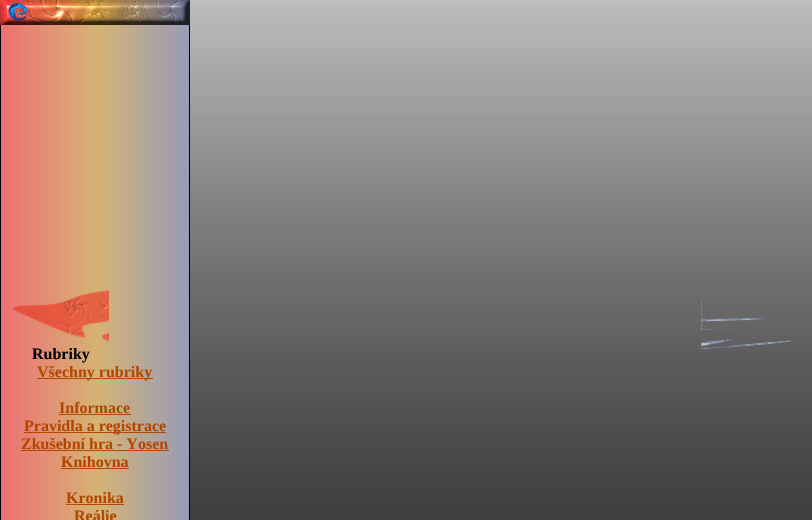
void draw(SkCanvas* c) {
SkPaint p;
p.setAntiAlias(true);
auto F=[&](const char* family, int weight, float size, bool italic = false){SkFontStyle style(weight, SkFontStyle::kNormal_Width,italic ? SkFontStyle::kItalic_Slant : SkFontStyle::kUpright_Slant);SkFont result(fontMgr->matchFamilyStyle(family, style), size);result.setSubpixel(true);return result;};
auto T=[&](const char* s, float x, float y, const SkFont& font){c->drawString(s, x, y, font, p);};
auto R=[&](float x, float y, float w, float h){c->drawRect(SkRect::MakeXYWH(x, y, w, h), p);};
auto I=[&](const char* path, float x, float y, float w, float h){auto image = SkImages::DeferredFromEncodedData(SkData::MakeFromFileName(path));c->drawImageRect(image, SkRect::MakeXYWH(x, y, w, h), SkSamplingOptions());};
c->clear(0xffffffff);
I("1.png",190,0,622,520);
I("5.png",1,25,188,495);
I("2.png",13,290,96,52);
I("3.png",701,300,95,50);
I("4.png",0,0,190,25);
auto f1 = F("Liberation Serif",700,16);
p.setColor(0xff000000);
T("Rubriky",32,359,f1);
R(189,25,1,495);
R(0,25,1,495);
p.setColor(0xffb34700);
R(37,378,116,1);
T("Všechny rubriky",37,377,f1);
T("Informace",59,413,f1);
R(59,414,72,1);
R(24,432,142,1);
T("Pravidla a registrace",24,431,f1);
T("Zkušební hra - Yosen",21,449,f1);
R(21,450,148,1);
T("Knihovna",61,467,f1);
R(61,468,68,1);
T("Kronika",66,503,f1);
R(66,504,58,1);
T("Reálie",74,521,f1);
}
